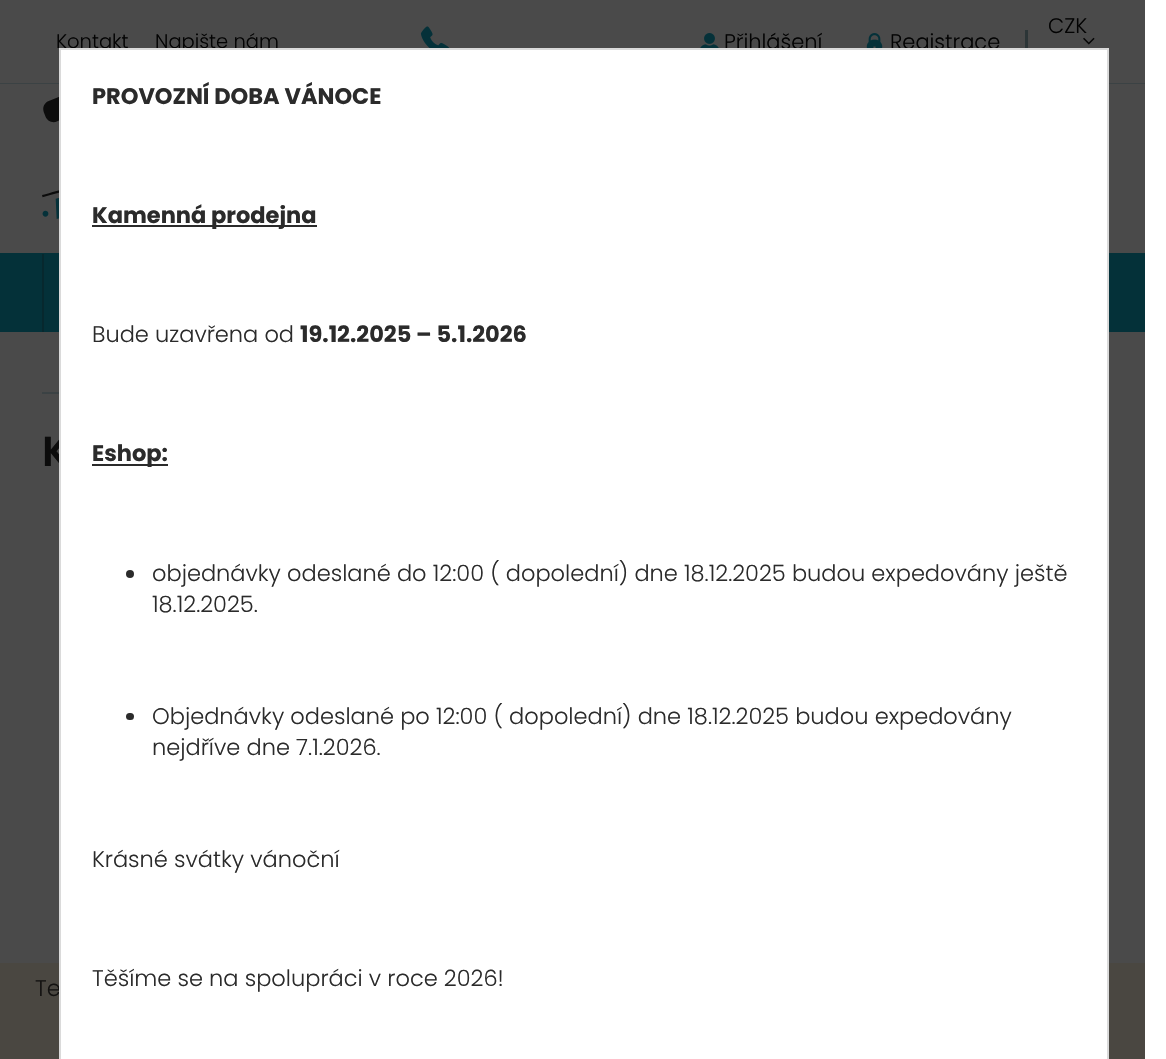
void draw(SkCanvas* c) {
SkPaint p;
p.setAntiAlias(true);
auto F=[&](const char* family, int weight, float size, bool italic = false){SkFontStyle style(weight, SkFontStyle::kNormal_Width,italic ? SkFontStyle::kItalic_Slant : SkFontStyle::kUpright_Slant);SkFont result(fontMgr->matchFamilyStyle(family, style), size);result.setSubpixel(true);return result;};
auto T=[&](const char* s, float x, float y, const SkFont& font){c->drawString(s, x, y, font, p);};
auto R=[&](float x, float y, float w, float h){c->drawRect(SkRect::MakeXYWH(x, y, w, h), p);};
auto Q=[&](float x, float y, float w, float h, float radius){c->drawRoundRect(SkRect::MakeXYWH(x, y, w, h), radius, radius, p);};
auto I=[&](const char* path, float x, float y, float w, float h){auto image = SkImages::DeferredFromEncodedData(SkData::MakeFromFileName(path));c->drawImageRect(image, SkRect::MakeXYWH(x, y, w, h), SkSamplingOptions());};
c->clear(0xffffffff);
p.setColor(0xff4a4a4a);
R(0,0,1145,1059);
p.setColor(0xff3b4244);
R(0,83,1145,1);
auto f1 = F("Poppins",300,19.5);
p.setColor(0xff030303);
T("Kontakt",56,48,f1);
T("Napište nám",155,48,f1);
I("1.png",420,26,29,22);
auto f2 = F("Poppins",300,21);
T("CZK",1048,33,f2);
I("2.png",1083,37,12,8);
p.setColor(0xff2c3537);
R(1025,30,3,23);
I("3.png",700,33,19,15);
p.setColor(0xff030303);
T("Přihlášení",724,49,f2);
I("4.png",866,33,17,15);
T("Registrace",890,49,f2);
p.setColor(0xff043139);
R(0,253,1145,79);
I("5.png",42,97,17,122);
p.setColor(0xff07282e);
R(42,254,2,78);
p.setColor(0xff3b4244);
R(42,392,17,2);
auto f3 = F("Poppins",600,42);
p.setColor(0xff0c0c0c);
T("K",42,466,f3);
p.setColor(0xe649463f);
R(0,963,1145,96);
auto f4 = F("Poppins",300,22.5);
p.setColor(0xff131211);
T("Te",35,996,f4);
p.setColor(0xffffffff);
c->drawRect(SkRect::MakeXYWH(60,49,1048,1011),p);
p.setStroke(true);
p.setStrokeWidth(2);
p.setColor(0xffdadada);
c->drawRect(SkRect::MakeXYWH(60,49,1048,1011),p);
auto f5 = F("Poppins",700,22.5);
p.setStroke(false);
p.setColor(0xff2b2b2b);
T("PROVOZNÍ DOBA VÁNOCE",92,104,f5);
R(92,225,225,2);
T("Kamenná prodejna",92,223,f5);
T("Bude uzavřena od",92,342,f4);
T("19.12.2025 – 5.1.2026",300,342,f5);
R(92,464,76,2);
T("Eshop:",92,461,f5);
c->drawCircle(130,574,4,p);
T("objednávky odeslané do 12:00 ( dopolední) dne 18.12.2025 budou expedovány ještě",152,581,f4);
T("18.12.2025.",152,612,f4);
Q(126,713,8,7,3.5);
T("Objednávky odeslané po 12:00 ( dopolední) dne 18.12.2025 budou expedovány",152,724,f4);
T("nejdříve dne 7.1.2026.",152,755,f4);
T("Krásné svátky vánoční",92,867,f4);
T("Těšíme se na spolupráci v roce 2026!",92,986,f4);
}
